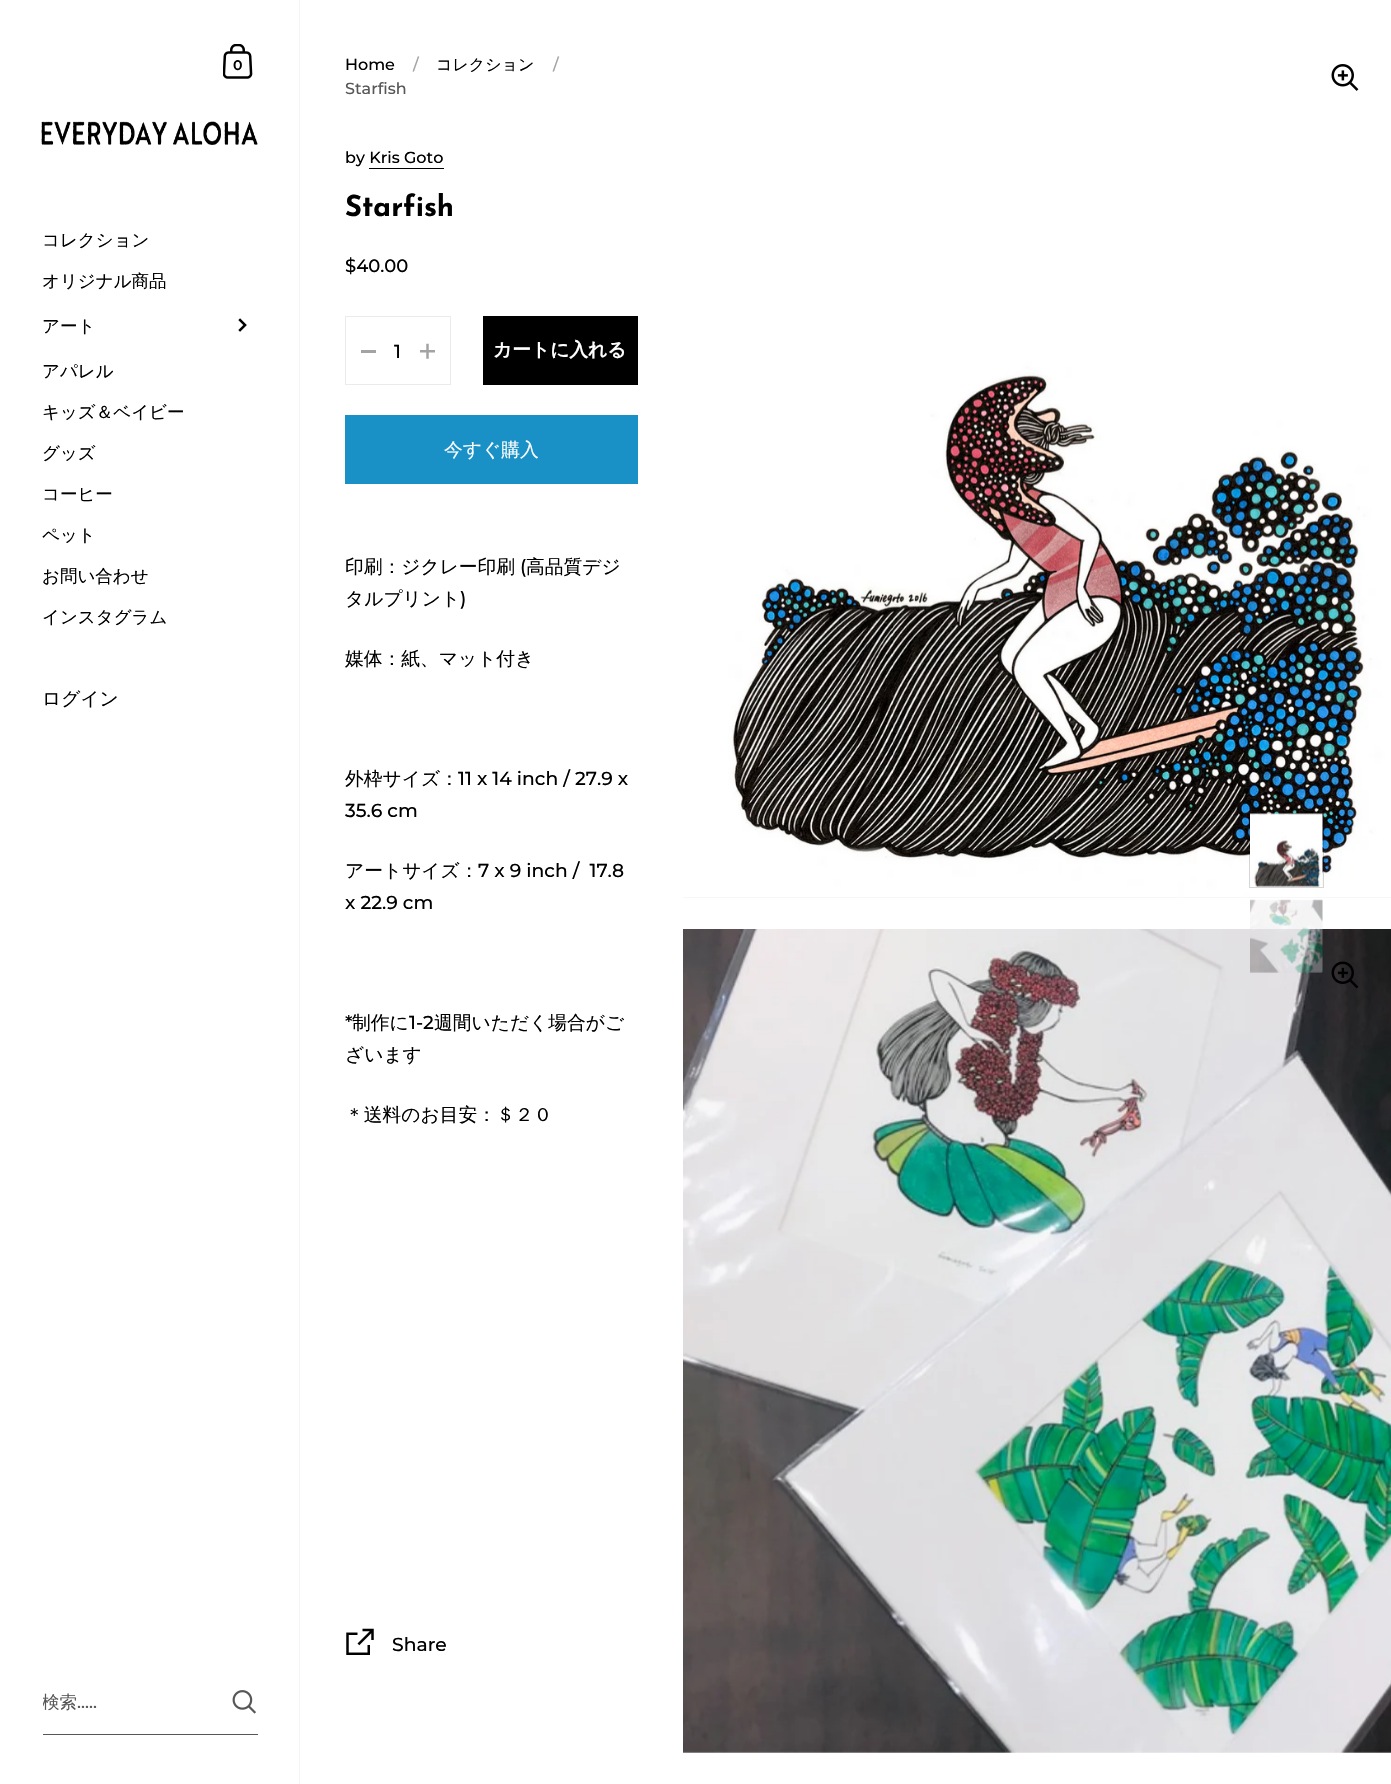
void draw(SkCanvas* c) {
SkPaint p;
p.setAntiAlias(true);
auto F=[&](const char* family, int weight, float size, bool italic = false){SkFontStyle style(weight, SkFontStyle::kNormal_Width,italic ? SkFontStyle::kItalic_Slant : SkFontStyle::kUpright_Slant);SkFont result(fontMgr->matchFamilyStyle(family, style), size);result.setSubpixel(true);return result;};
auto T=[&](const char* s, float x, float y, const SkFont& font){c->drawString(s, x, y, font, p);};
auto R=[&](float x, float y, float w, float h){c->drawRect(SkRect::MakeXYWH(x, y, w, h), p);};
auto I=[&](const char* path, float x, float y, float w, float h){auto image = SkImages::DeferredFromEncodedData(SkData::MakeFromFileName(path));c->drawImageRect(image, SkRect::MakeXYWH(x, y, w, h), SkSamplingOptions());};
c->clear(0xffffffff);
p.setColor(0xfff5f5f5);
R(299,0,1,1784);
I("1.png",223,44,30,35);
auto f1 = F("Montserrat",600,14);
p.setColor(0xff000000);
T("0",233,70,f1);
I("2.png",41,121,217,24);
auto f2 = F("WenQuanYi Zen Hei",500,17.5);
T("コレクション",42,246,f2);
T("オリジナル商品",42,287,f2);
T("アート",42,332,f2);
I("3.png",238,318,9,14);
T("アパレル",42,377,f2);
T("キッズ＆ベイビー",42,418,f2);
T("グッズ",42,459,f2);
T("コーヒー",42,500,f2);
T("ペット",42,541,f2);
T("お問い合わせ",42,582,f2);
T("インスタグラム",42,623,f2);
auto f3 = F("WenQuanYi Zen Hei",500,18.75);
T("ログイン",42,705,f3);
p.setColor(0xff575757);
R(43,1734,215,1);
c->save();
c->clipRect(SkRect::MakeXYWH(43,1693,162,22));
T("検索",42,1708,f2);
c->restore();
auto f4 = F("Montserrat",500,17.5);
T(".....",77,1708,f4);
I("4.png",232,1690,24,24);
auto f5 = F("Montserrat",500,16);
p.setColor(0xff000000);
T("Home",345,70,f5);
p.setColor(0xffa3a3a3);
T("/",413,70,f5);
auto f6 = F("WenQuanYi Zen Hei",500,16);
p.setColor(0xff000000);
T("コレクション",436,70,f6);
p.setColor(0xffa3a3a3);
T("/",553,70,f5);
p.setColor(0xff575757);
T("Starfish",345,94,f5);
p.setColor(0xff000000);
T("by Kris Goto",345,163,f5);
R(369,168,75,1);
auto f7 = F("Josefin Sans",700,29);
T("Starfish",345,216,f7);
auto f8 = F("Montserrat",500,18);
T("$40.00",345,272,f8);
p.setStroke(true);
p.setStrokeWidth(1);
p.setColor(0xffebebeb);
c->drawRect(SkRect::MakeXYWH(345.5,316.5,105,68),p);
p.setStroke(false);
p.setColor(0xffa3a3a3);
R(361,350,15,3);
auto f9 = F("Montserrat",500,18.75);
p.setColor(0xff000000);
T("1",394,358,f9);
I("5.png",420,343,15,16);
R(483,316,155,69);
auto f10 = F("WenQuanYi Zen Hei",700,18.75);
p.setColor(0xffffffff);
T("カートに入れる",493,356,f10);
p.setColor(0xff1990c6);
R(345,415,293,69);
p.setColor(0xffffffff);
T("今すぐ購入",444,456,f3);
p.setColor(0xff000000);
T("印刷：ジクレー印刷",345,573,f3);
T("(",520,573,f9);
T("高品質デジ",526,573,f3);
T("タルプリント",345,605,f3);
T(")",460,605,f9);
T("媒体：紙、マット付き",345,665,f3);
T("外枠サイズ：",345,785,f3);
T("11 x 14 inch / 27.9 x",458,785,f9);
T("35.6 cm",345,817,f9);
T("アートサイズ：",345,877,f3);
T("7 x 9 inch /  17.8",478,877,f9);
T("x 22.9 cm",345,909,f9);
T("*",345,1029,f9);
T("制作に",352,1029,f3);
T("1-2",409,1029,f9);
T("週間いただく場合がご",434,1029,f3);
T("ざいます",345,1061,f3);
T("＊送料のお目安：＄２０",345,1121,f3);
I("6.png",346,1628,28,27);
T("Share",392,1651,f9);
p.setColor(0xfff7f7f7);
R(683,897,708,1);
I("7.png",683,31,708,866);
I("8.png",1331,64,28,27);
R(683,1751,708,2);
I("9.png",683,929,708,824);
I("10.png",1331,961,28,28);
p.setStroke(true);
p.setColor(0x29000000);
c->drawRect(SkRect::MakeXYWH(1249.5,813.5,74,74),p);
p.setStroke(false);
p.setColor(0x0a000000);
R(1250,814,73,72);
I("11.png",1250,813,73,74);
I("12.png",1250,899,73,74);
}
